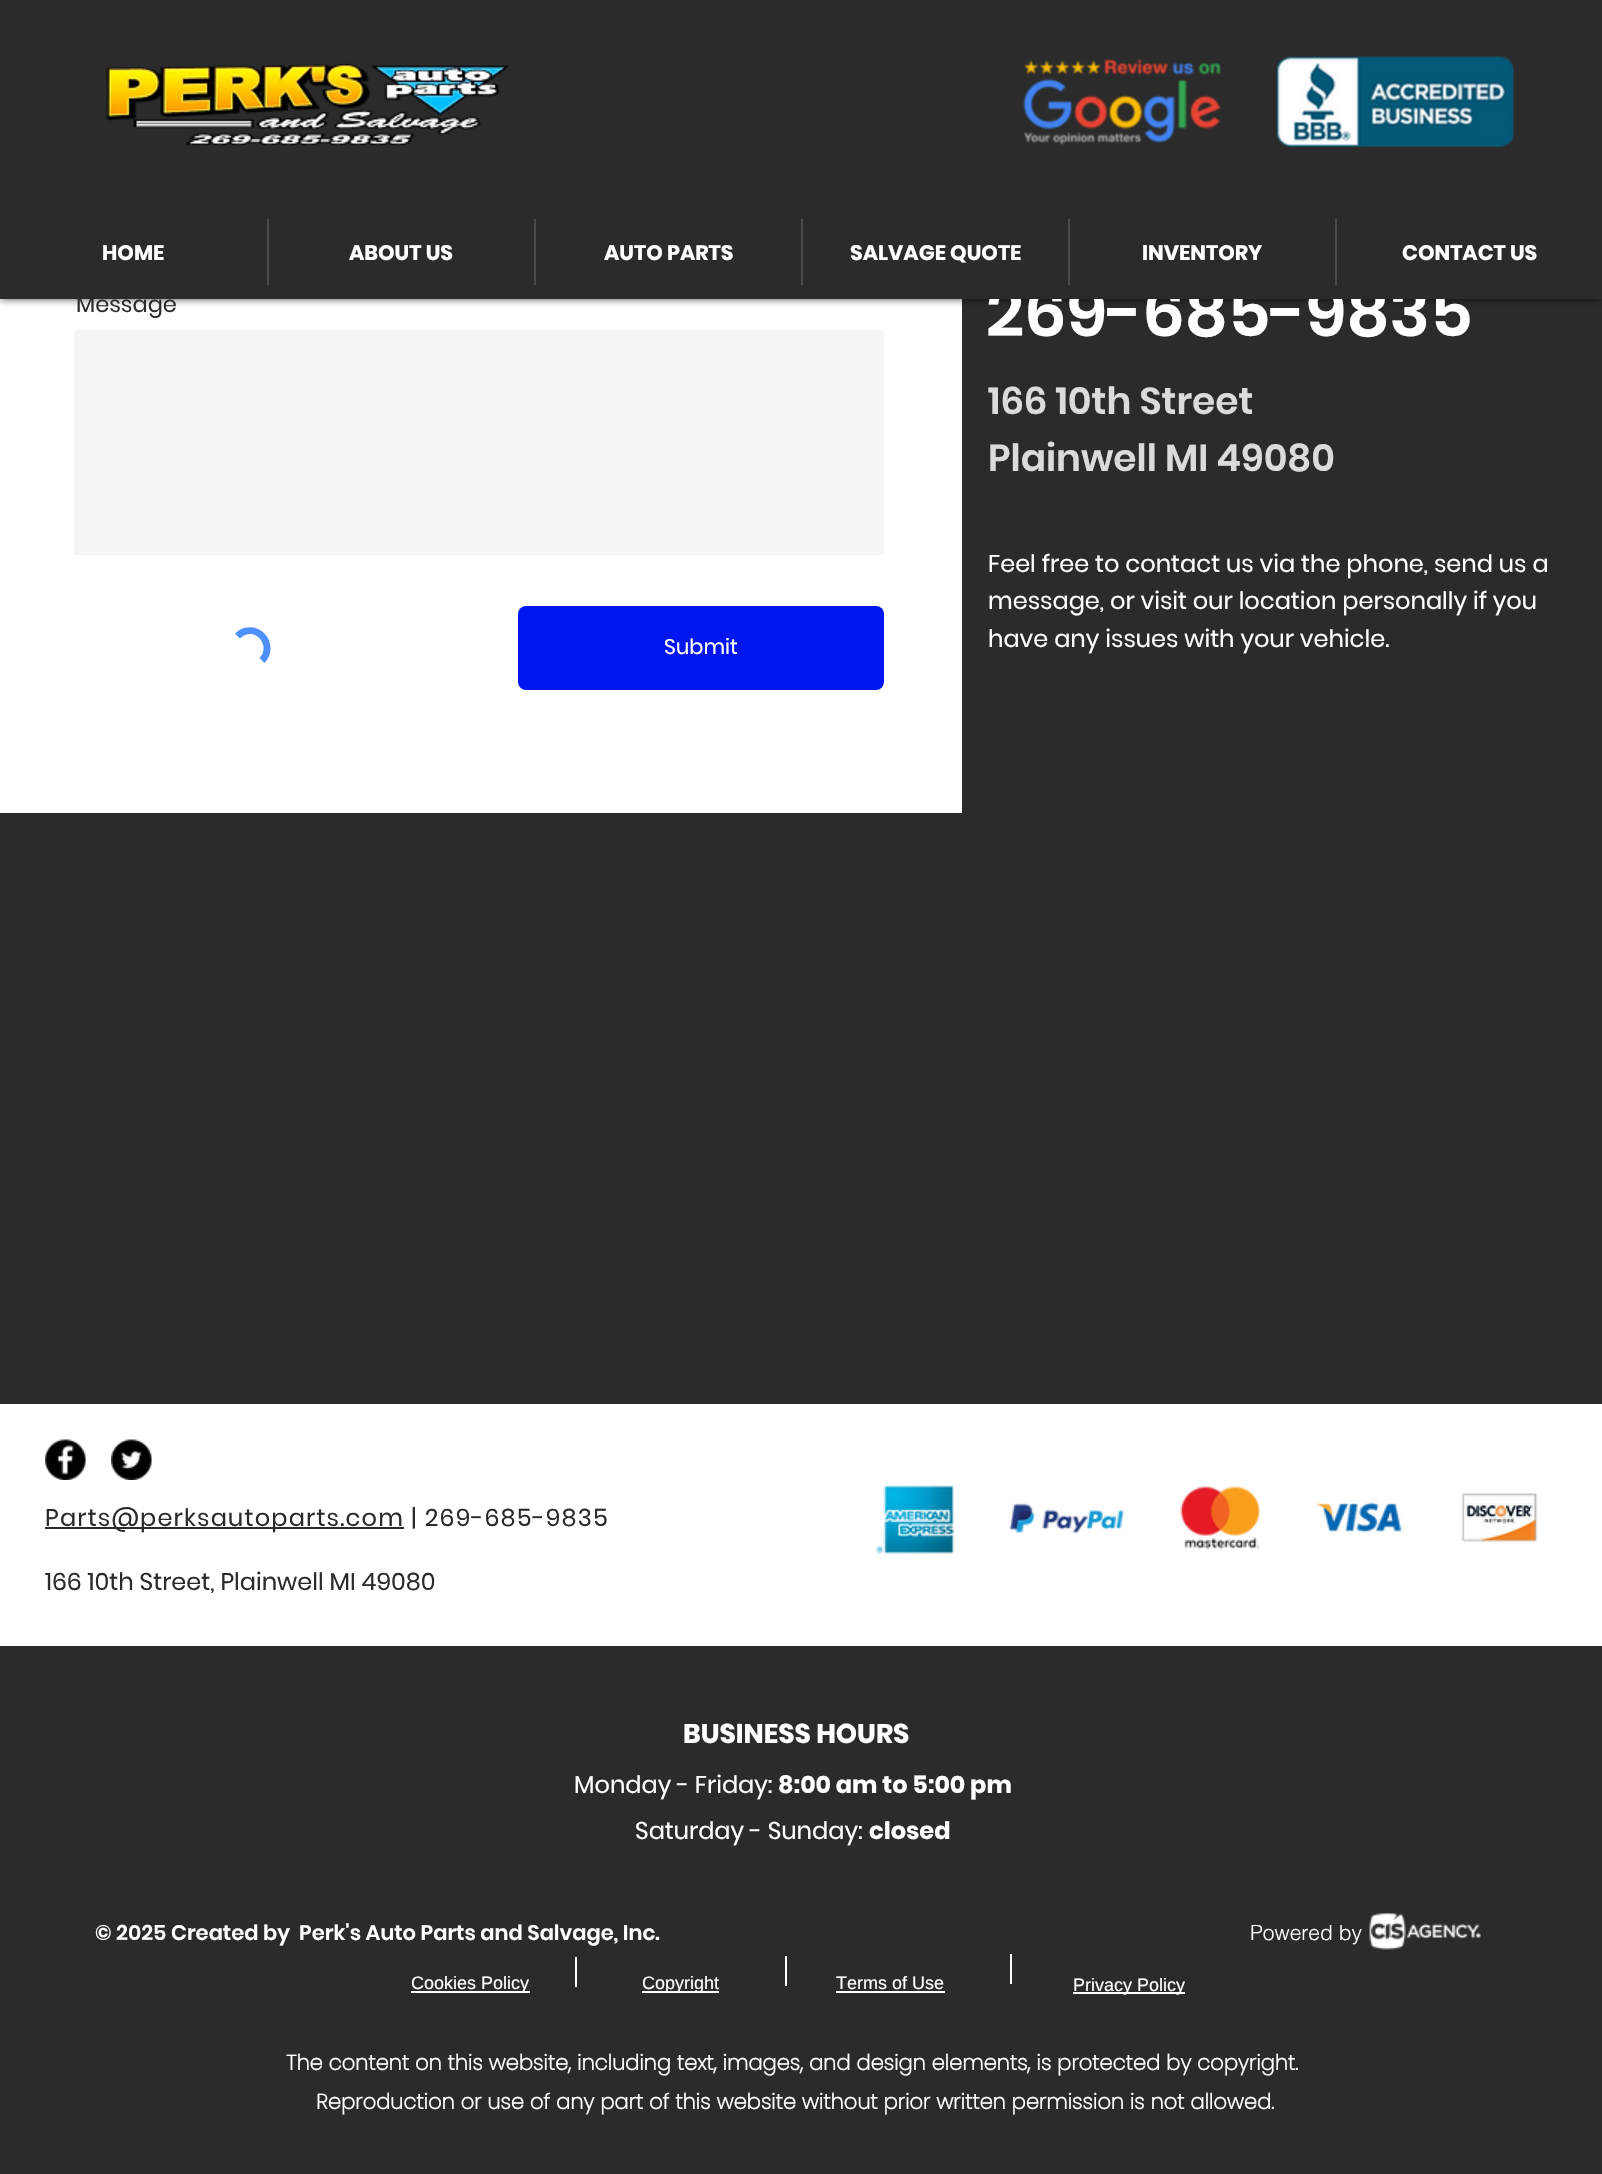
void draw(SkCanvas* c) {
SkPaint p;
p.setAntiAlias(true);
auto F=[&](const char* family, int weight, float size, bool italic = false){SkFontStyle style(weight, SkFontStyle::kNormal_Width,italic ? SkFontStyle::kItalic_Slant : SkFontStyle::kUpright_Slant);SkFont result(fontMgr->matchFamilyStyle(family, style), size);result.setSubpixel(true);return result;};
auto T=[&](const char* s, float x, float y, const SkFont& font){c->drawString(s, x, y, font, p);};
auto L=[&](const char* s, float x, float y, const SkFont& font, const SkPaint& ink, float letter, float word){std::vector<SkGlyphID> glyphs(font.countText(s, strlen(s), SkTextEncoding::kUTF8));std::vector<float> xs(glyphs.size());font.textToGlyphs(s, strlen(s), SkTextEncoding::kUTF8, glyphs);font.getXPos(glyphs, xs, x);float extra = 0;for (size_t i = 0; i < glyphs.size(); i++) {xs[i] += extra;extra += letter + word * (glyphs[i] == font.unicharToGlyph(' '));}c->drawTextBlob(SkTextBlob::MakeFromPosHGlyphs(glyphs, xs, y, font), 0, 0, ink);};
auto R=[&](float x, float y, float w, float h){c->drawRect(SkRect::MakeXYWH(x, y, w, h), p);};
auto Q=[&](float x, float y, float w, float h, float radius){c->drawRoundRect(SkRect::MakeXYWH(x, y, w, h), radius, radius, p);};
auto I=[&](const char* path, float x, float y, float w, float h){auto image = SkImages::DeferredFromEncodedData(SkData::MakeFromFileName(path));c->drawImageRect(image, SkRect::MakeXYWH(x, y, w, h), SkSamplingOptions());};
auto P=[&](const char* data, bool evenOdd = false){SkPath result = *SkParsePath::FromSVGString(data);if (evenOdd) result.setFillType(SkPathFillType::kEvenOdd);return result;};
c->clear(0xffffffff);
p.setColor(0xff2b2b2b);
R(962,299,640,514);
p.setColor(0xb3000000);
p.setMaskFilter(SkMaskFilter::MakeBlur(kNormal_SkBlurStyle, 4));
c->drawRect(SkRect::MakeXYWH(0,0,1602,299),p);
p.setMaskFilter(nullptr);
auto f1 = F("Poppins",600,67.5);
p.setColor(0xffffffff);
T("269-685-9835",986,336,f1);
p.setColor(0xff2b2b2b);
R(0,0,1602,299);
I("1.png",106,63,403,83);
I("2.png",1022,58,199,87);
I("3.png",1276,56,238,91);
auto f2 = F("Poppins",700,21);
p.setColor(0xffffffff);
T("HOME",102,260,f2);
p.setColor(0xff4b4b4c);
R(267,219,2,66);
p.setColor(0xffffffff);
T("ABOUT US",349,260,f2);
p.setColor(0xff4b4b4c);
R(534,219,2,66);
p.setColor(0xffffffff);
T("AUTO PARTS",604,260,f2);
p.setColor(0xff4b4b4c);
R(801,219,2,66);
p.setColor(0xffffffff);
T("SALVAGE QUOTE",850,260,f2);
p.setColor(0xff4b4b4c);
R(1068,219,2,66);
p.setColor(0xffffffff);
T("INVENTORY",1142,260,f2);
p.setColor(0xff4b4b4c);
R(1335,219,2,66);
p.setColor(0xffffffff);
T("CONTACT US",1402,260,f2);
auto f3 = F("Poppins",400,22.5);
p.setColor(0xff2b2b2b);
T("Message",76,312,f3);
p.setColor(0xfff5f5f5);
R(74,330,810,225);
p.setStroke(true);
p.setStrokeWidth(6.9);
p.setColor(0xff4d90fe);
c->drawPath(P("M237.5 636c2.5-2.5 5.5-4.5 9-5c16.5-3.5 27.5 17.5 15.5 29.5"),p);
p.setStroke(false);
p.setColor(0xff0016f1);
Q(518,606,366,84,8);
auto f4 = F("Poppins",400,21);
p.setColor(0xffffffff);
T("Submit",664,654,f4);
auto f5 = F("Poppins",600,37.5);
p.setColor(0xffdbdbdb);
T("166 10th Street",988,414,f5);
T("Plainwell MI 49080",988,471,f5);
auto f6 = F("Poppins",400,24);
p.setColor(0xffffffff);
T("Feel free to contact us via the phone, send us a",988,572,f6);
T("message, or visit our location personally if you",988,609,f6);
T("have any issues with your vehicle.",988,647,f6);
p.setColor(0xff2b2b2b);
R(0,813,1602,1361);
p.setColor(0xffffffff);
R(0,1404,1602,242);
I("4.png",45,1439,41,41);
I("5.png",111,1439,41,41);
p.setColor(0xff2b2b2b);
R(45,1527,359,2);
L("Parts@perksautoparts.com | 269-685-9835",45,1526,f6,p,1.2,0);
T("166 10th Street, Plainwell MI 49080",45,1590,f6);
I("6.png",875,1485,663,69);
auto f7 = F("Poppins",700,27);
p.setColor(0xffffffff);
T("BUSINESS HOURS",683,1743,f7);
T("Monday - Friday:",574,1793,f6);
auto f8 = F("Poppins",700,24);
T("8:00 am to 5:00 pm",778,1793,f8);
T("Saturday - Sunday:",635,1839,f6);
T("closed",869,1839,f8);
auto f9 = F("Poppins",600,21);
T("© 2025 Created by  Perk's Auto Parts and Salvage, Inc.",95,1940,f9);
auto f10 = F("helvetica",300,21);
T("Powered by",1250,1940,f10);
I("7.png",1369,1912,112,38);
R(411,1991,119,2);
auto f11 = F("Liberation Sans",400,18);
T("Cookies Policy",411,1989,f11);
R(575,1957,2,30);
R(642,1991,77,2);
T("Copyright",642,1989,f11);
R(785,1956,2,30);
T("Terms of Use",836,1989,f11);
R(836,1991,109,2);
R(1010,1954,2,30);
R(1073,1992,112,2);
T("Privacy Policy",1073,1991,f11);
auto f12 = F("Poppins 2",700,21);
T("The content on this website, including text, images, and design elements, is protected by copyright.",286,2070,f12);
T("Reproduction or use of any part of this website without prior written permission is not allowed.",316,2109,f12);
}
